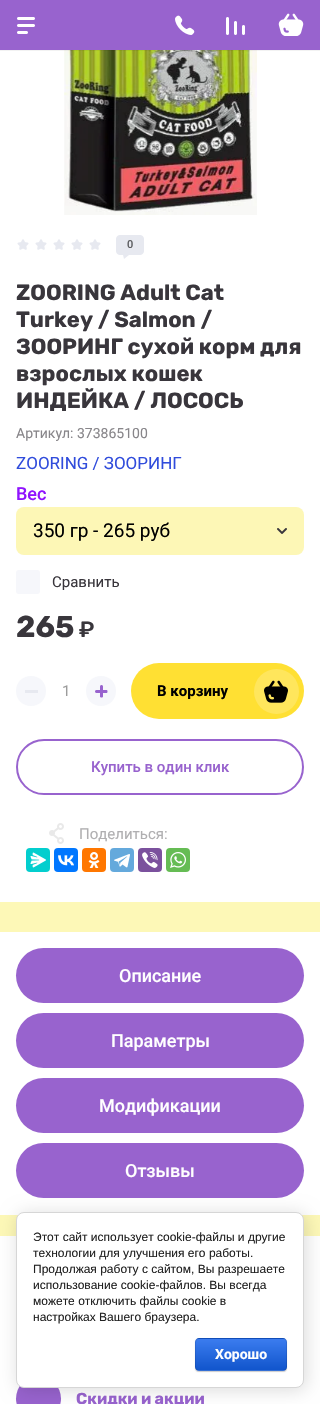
void draw(SkCanvas* c) {
SkPaint p;
p.setAntiAlias(true);
auto F=[&](const char* family, int weight, float size, bool italic = false){SkFontStyle style(weight, SkFontStyle::kNormal_Width,italic ? SkFontStyle::kItalic_Slant : SkFontStyle::kUpright_Slant);SkFont result(fontMgr->matchFamilyStyle(family, style), size);result.setSubpixel(true);return result;};
auto T=[&](const char* s, float x, float y, const SkFont& font){c->drawString(s, x, y, font, p);};
auto R=[&](float x, float y, float w, float h){c->drawRect(SkRect::MakeXYWH(x, y, w, h), p);};
auto Q=[&](float x, float y, float w, float h, float radius){c->drawRoundRect(SkRect::MakeXYWH(x, y, w, h), radius, radius, p);};
auto I=[&](const char* path, float x, float y, float w, float h){auto image = SkImages::DeferredFromEncodedData(SkData::MakeFromFileName(path));c->drawImageRect(image, SkRect::MakeXYWH(x, y, w, h), SkSamplingOptions());};
auto P=[&](const char* data, bool evenOdd = false){SkPath result = *SkParsePath::FromSVGString(data);if (evenOdd) result.setFillType(SkPathFillType::kEvenOdd);return result;};
c->clear(0xfffdf8b7);
p.setColor(0xffffffff);
R(0,50,320,852);
I("5.png",64,50,193,165);
p.setColor(0x0d000000);
R(0,50,320,1);
p.setColor(0xff9863ce);
R(0,0,320,50);
I("1.png",17,17,18,17);
I("2.png",175,15,20,20);
I("3.png",226,17,19,18);
I("4.png",278,13,26,23);
I("6.png",17,239,84,11);
I("7.png",116,235,28,24);
auto f1 = F("Roboto",500,11);
p.setColor(0xff5c5d60);
T("0",127,248,f1);
auto f2 = F("Rubik",700,22);
p.setColor(0xff39363c);
T("ZOORING Adult Cat",16,300,f2);
T("Turkey / Salmon /",16,327,f2);
T("ЗООРИНГ сухой корм для",16,354,f2);
T("взрослых кошек",16,381,f2);
T("ИНДЕЙКА / ЛОСОСЬ",16,408,f2);
auto f3 = F("Roboto",400,14);
p.setColor(0xff88868a);
T("Артикул: 373865100",16,438,f3);
auto f4 = F("Roboto",400,17);
p.setColor(0xff304cdc);
T("ZOORING / ЗООРИНГ",16,469,f4);
auto f5 = F("Roboto",500,18);
p.setColor(0xff9013fe);
T("Вес",16,500,f5);
p.setColor(0xfffdf7b6);
Q(16,507,288,48,8);
I("8.png",277,528,10,6);
auto f6 = F("Roboto",400,19);
p.setColor(0xff000000);
T("350 гр - 265 руб",33,537,f6);
p.setColor(0xfff6f7fb);
Q(16,570,24,24,3);
auto f7 = F("Roboto",400,15);
p.setColor(0xff39363c);
T("Сравнить",52,587,f7);
auto f8 = F("Rubik",700,30);
T("265",16,637,f8);
auto f9 = F("Rubik",500,22);
T("₽",79,637,f9);
p.setColor(0xfff6f7fb);
c->drawPath(P("M31 676c8.5 0 15 6.5 15 15c0 8.5-6.5 15-15 15c-8.5 0-15-6.5-15-15c0-8.5 6.5-15 15-15z"),p);
p.setColor(0xffe7e9f0);
R(25,690,13,3);
p.setColor(0xff9c9c9c);
T("1",62,696,f7);
p.setColor(0xfff6f7fb);
c->drawPath(P("M101 676c8.5 0 15 6.5 15 15c0 8.5-6.5 15-15 15c-8.5 0-15-6.5-15-15c0-8.5 6.5-15 15-15z"),p);
I("9.png",95,685,13,13);
p.setColor(0xffffe033);
Q(131,663,173,56,28);
auto f10 = F("Roboto",700,15);
p.setColor(0xff000000);
T("В корзину",157,696,f10);
p.setColor(0xffffe65c);
c->drawCircle(276.5,691.5,22.5,p);
I("10.png",264,680,24,23);
p.setStroke(true);
p.setStrokeWidth(2);
p.setColor(0xff9863ce);
c->drawRoundRect(SkRect::MakeXYWH(17,740,286,54),27,27,p);
auto f11 = F("Roboto",500,15);
p.setStroke(false);
T("Купить в один клик",91,772,f11);
I("11.png",49,823,15,21);
p.setColor(0xffb0afb1);
T("Поделиться:",79,839,f7);
p.setColor(0xff03cece);
Q(26,848,24,24,4);
I("12.png",30,852,16,16);
p.setColor(0xff0077ff);
Q(54,848,24,24,4);
I("13.png",58,855,16,11);
p.setColor(0xffff7700);
Q(82,848,24,24,4);
I("14.png",88,852,12,16);
p.setColor(0xff64a9dc);
Q(110,848,24,24,4);
I("15.png",114,854,16,14);
p.setColor(0xff7b519d);
Q(138,848,24,24,4);
I("16.png",142,852,16,16);
p.setColor(0xff65bc54);
Q(166,848,24,24,4);
I("17.png",170,852,16,16);
p.setColor(0xffffffff);
R(0,932,320,283);
p.setColor(0xff9863ce);
Q(16,948,288,55,27.5);
p.setColor(0xffffffff);
T("Описание",119,982,f5);
p.setColor(0xff9863ce);
Q(16,1013,288,55,27.5);
p.setColor(0xffffffff);
T("Параметры",111,1047,f5);
p.setColor(0xff9863ce);
Q(16,1078,288,55,27.5);
p.setColor(0xffffffff);
T("Модификации",99,1112,f5);
p.setColor(0xff9863ce);
Q(16,1143,288,55,27.5);
p.setColor(0xffffffff);
T("Отзывы",125,1177,f5);
R(0,1236,320,168);
p.setColor(0xff9863ce);
c->drawCircle(38.5,1398.5,22.5,p);
auto f12 = F("Rubik",700,16);
T("Скидки и акции",76,1404,f12);
p.setColor(0x24000000);
p.setMaskFilter(SkMaskFilter::MakeBlur(kNormal_SkBlurStyle, 9));
c->drawRoundRect(SkRect::MakeXYWH(18,1214,288,176),8,8,p);
p.setMaskFilter(nullptr);
p.setColor(0xffffffff);
c->drawRoundRect(SkRect::MakeXYWH(16.5,1212.5,287,175),7.5,7.5,p);
p.setStroke(true);
p.setStrokeWidth(1);
p.setColor(0xffd6d6d6);
c->drawRoundRect(SkRect::MakeXYWH(16.5,1212.5,287,175),7.5,7.5,p);
auto f13 = F("Liberation Sans",400,12);
p.setStroke(false);
p.setColor(0xff212121);
T("Этот сайт использует cookie-файлы и другие",33,1241,f13);
T("технологии для улучшения его работы.",33,1257,f13);
T("Продолжая работу с сайтом, Вы разрешаете",33,1273,f13);
T("использование cookie-файлов. Вы всегда",33,1289,f13);
T("можете отключить файлы cookie в",33,1305,f13);
T("настройках Вашего браузера.",33,1321,f13);
p.setColor(0x33000000);
p.setMaskFilter(SkMaskFilter::MakeBlur(kNormal_SkBlurStyle, .5));
c->drawRoundRect(SkRect::MakeXYWH(195,1339,92,33),4,4,p);
p.setMaskFilter(nullptr);
c->save();
c->clipPath(P("M199 1338h84c2 0 4 2 4 4v25c0 2-2 4-4 4h-84c-2 0-4-2-4-4v-25c0-2 2-4 4-4z"),true);
{
const SkColor colors[] = {0xff3b7cef,0xff1155cc};
const float stops[] = {0,1};
const SkPoint ends[] = {{241,1308}, {241,1339}};
p.setShader(SkGradientShader::MakeLinear(ends, colors, stops, 2, SkTileMode::kClamp));
p.setAlpha(255);
}
R(195,1338,92,1);
{
const SkColor colors[] = {0xff3b7cef,0xff1155cc};
const float stops[] = {0,1};
const SkPoint ends[] = {{241,1339}, {241,1370}};
p.setShader(SkGradientShader::MakeLinear(ends, colors, stops, 2, SkTileMode::kClamp));
p.setAlpha(255);
}
R(195,1339,92,31);
{
const SkColor colors[] = {0xff3b7cef,0xff1155cc};
const float stops[] = {0,1};
const SkPoint ends[] = {{241,1370}, {241,1401}};
p.setShader(SkGradientShader::MakeLinear(ends, colors, stops, 2, SkTileMode::kClamp));
p.setAlpha(255);
}
R(195,1370,92,1);
c->restore();
p.setStroke(true);
p.setShader(nullptr);
p.setColor(0x1a000000);
c->drawRoundRect(SkRect::MakeXYWH(195.5,1338.5,91,32),3.5,3.5,p);
auto f14 = F("Roboto",700,14);
p.setStroke(false);
p.setColor(0xffffffff);
T("Хорошо",215,1359,f14);
}
